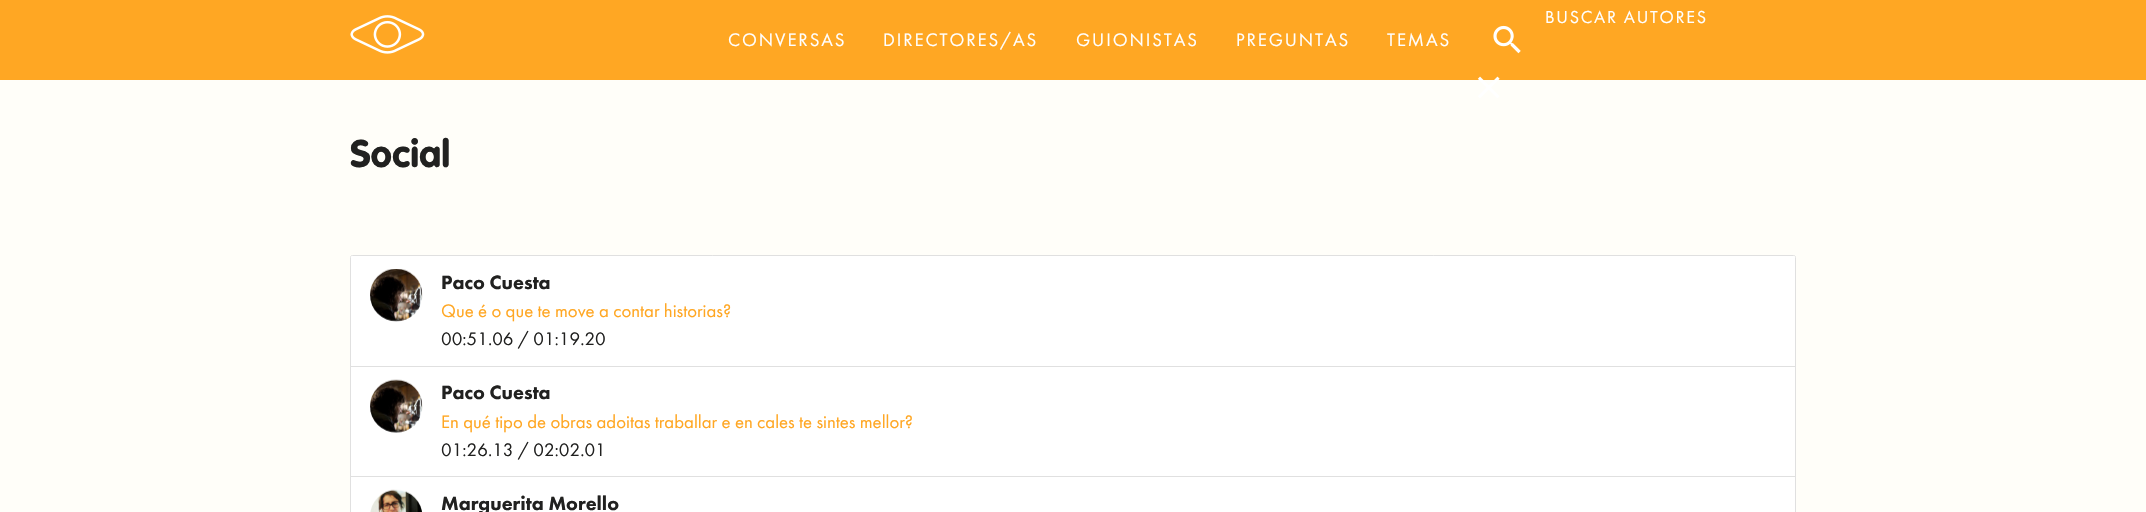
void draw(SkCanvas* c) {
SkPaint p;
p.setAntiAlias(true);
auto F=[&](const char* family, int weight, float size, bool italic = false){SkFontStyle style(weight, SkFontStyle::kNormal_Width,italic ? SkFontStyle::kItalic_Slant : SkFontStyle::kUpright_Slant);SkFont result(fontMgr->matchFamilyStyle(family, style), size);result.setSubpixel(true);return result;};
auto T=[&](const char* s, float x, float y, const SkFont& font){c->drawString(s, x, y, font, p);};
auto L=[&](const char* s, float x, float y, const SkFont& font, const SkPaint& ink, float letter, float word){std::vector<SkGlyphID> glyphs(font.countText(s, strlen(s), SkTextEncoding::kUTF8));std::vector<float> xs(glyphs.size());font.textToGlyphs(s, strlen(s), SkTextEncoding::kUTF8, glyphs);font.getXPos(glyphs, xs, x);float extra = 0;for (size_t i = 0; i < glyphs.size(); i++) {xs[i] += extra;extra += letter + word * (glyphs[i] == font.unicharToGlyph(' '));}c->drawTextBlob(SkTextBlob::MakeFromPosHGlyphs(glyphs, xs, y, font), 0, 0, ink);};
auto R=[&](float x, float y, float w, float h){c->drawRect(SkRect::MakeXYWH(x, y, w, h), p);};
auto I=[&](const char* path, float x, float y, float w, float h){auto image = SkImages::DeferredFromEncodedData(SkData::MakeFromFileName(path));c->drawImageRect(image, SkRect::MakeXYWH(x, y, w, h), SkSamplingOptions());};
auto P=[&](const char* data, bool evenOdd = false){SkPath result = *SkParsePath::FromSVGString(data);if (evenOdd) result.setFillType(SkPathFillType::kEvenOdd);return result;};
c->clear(0xfffffef9);
p.setColor(0xffffa723);
R(0,0,2146,80);
I("1.png",350,15,75,39);
auto f1 = F("Futura PT",400,18);
p.setColor(0xffffffff);
L("BUSCAR AUTORES",1545,23,f1,p,1.75,0);
I("2.png",1493,25,28,29);
I("3.png",1477,76,23,22);
auto f2 = F("Futura PT",400,18.75);
L("CONVERSAS",728,46,f2,p,1.9,0);
L("DIRECTORES/AS",883,46,f2,p,1.9,0);
L("GUIONISTAS",1076,46,f2,p,1.9,0);
L("PREGUNTAS",1236,46,f2,p,1.9,0);
L("TEMAS",1387,46,f2,p,1.9,0);
auto f3 = F("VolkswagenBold",700,37.5);
p.setColor(0xff212120);
T("Social",350,167,f3);
p.setStroke(true);
p.setStrokeWidth(1);
p.setColor(0xffe0e0e0);
c->drawRoundRect(SkRect::MakeXYWH(350.5,255.5,1445,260),2,2,p);
p.setStroke(false);
p.setColor(0xffffffff);
c->drawPath(P("M352 256h1442c.5 0 1 .5 1 1v111h-1444v-111c0-.5 .5-1 1-1z"),p);
p.setColor(0xffe0e0e0);
R(351,366,1444,1);
I("4.png",370,269,53,53);
auto f4 = F("Futura PT",900,20);
p.setColor(0xff212120);
T("Paco Cuesta",441,289,f4);
p.setColor(0xffffa723);
T("Que é o que te move a contar historias?",441,317,f2);
p.setColor(0xff212120);
T("00:51.06 / 01:19.20",441,345,f2);
p.setColor(0xffffffff);
R(351,368,1444,144);
p.setColor(0xffe0e0e0);
R(351,476,1444,1);
I("5.png",370,379,53,54);
p.setColor(0xff212120);
T("Paco Cuesta",441,399,f4);
p.setColor(0xffffa723);
T("En qué tipo de obras adoitas traballar e en cales te sintes mellor?",441,428,f2);
p.setColor(0xff212120);
T("01:26.13 / 02:02.01",441,456,f2);
I("6.png",370,489,52,23);
T("Marguerita Morello",441,510,f4);
}
